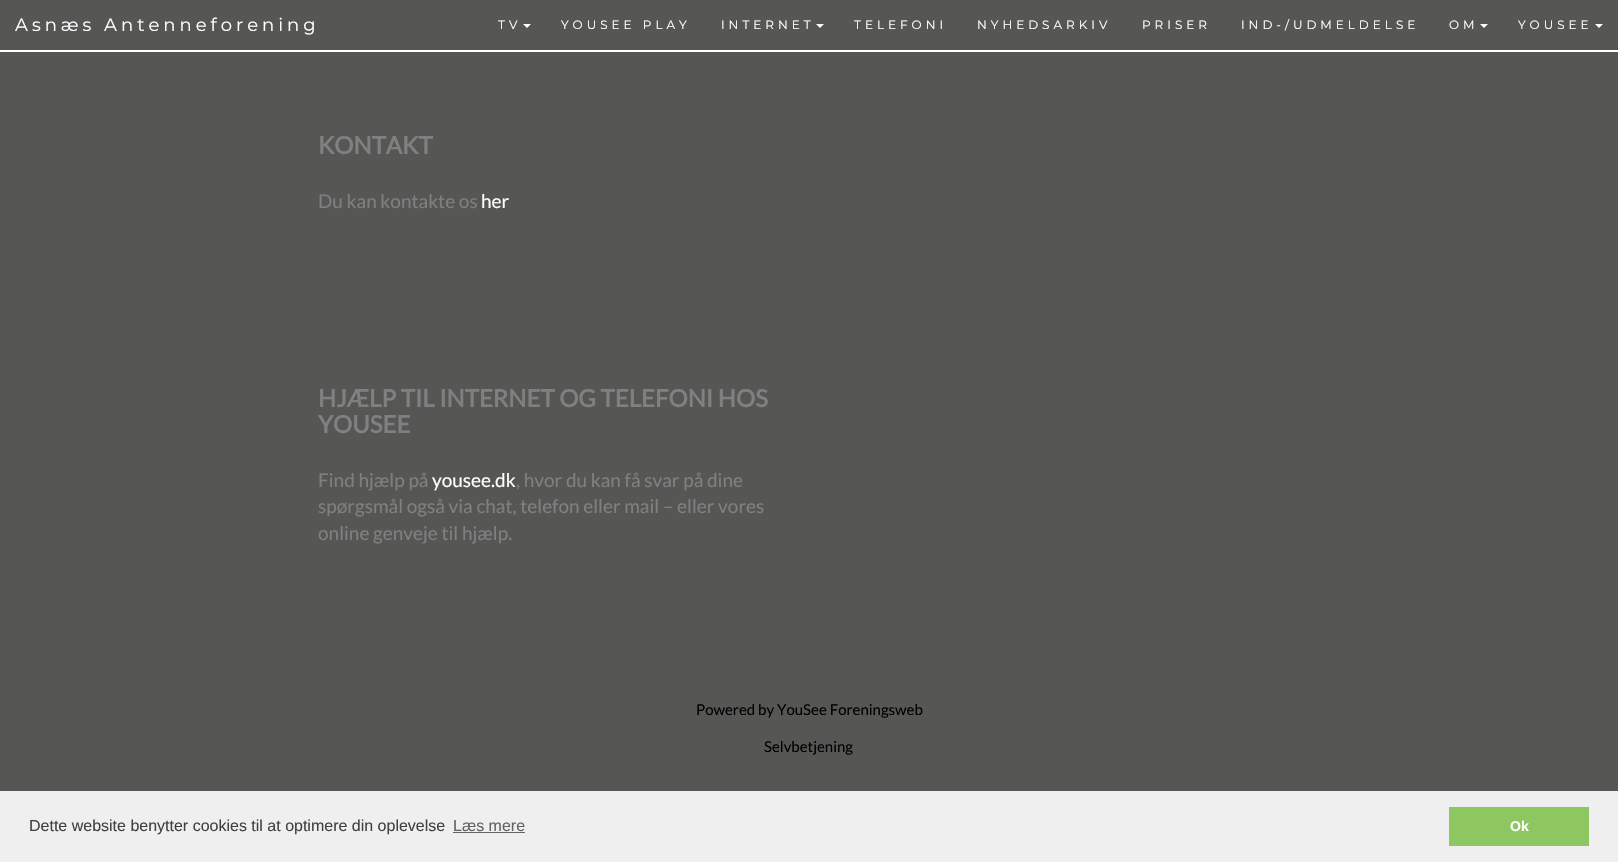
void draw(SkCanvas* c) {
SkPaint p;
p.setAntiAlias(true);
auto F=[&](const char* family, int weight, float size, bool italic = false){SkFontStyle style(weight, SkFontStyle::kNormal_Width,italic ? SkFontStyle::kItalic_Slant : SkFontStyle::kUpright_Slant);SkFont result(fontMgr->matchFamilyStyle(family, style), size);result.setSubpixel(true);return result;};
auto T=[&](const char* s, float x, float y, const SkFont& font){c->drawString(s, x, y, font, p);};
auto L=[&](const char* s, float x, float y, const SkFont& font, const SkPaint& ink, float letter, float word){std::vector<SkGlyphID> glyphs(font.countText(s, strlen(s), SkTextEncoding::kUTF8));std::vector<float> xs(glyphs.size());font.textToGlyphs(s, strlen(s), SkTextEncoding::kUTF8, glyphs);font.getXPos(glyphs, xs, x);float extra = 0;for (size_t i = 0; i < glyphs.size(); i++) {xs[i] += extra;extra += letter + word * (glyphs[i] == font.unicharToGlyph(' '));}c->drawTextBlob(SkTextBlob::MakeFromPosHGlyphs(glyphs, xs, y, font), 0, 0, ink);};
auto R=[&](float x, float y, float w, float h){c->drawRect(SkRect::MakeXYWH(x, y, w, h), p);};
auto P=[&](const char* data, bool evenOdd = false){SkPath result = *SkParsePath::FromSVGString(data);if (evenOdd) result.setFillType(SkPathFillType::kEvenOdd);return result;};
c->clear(0xffffffff);
p.setColor(0xff565655);
R(0,0,1618,50);
auto f1 = F("Montserrat",100,18);
p.setColor(0xffffffff);
L("Asnæs Antenneforening",15,31,f1,p,4,0);
auto f2 = F("Montserrat",100,12);
L("TV",498,29,f2,p,4,0);
c->drawPath(P("M523 24h8l-4 4z"),p);
L("YOUSEE PLAY",561,29,f2,p,4,0);
L("INTERNET",721,29,f2,p,4,0);
c->drawPath(P("M816 24h8l-4 4z"),p);
L("TELEFONI",854,29,f2,p,4,0);
L("NYHEDSARKIV",977,29,f2,p,4,0);
L("PRISER",1142,29,f2,p,4,0);
L("IND-/UDMELDELSE",1241,29,f2,p,4,0);
L("OM",1449,29,f2,p,4,0);
c->drawPath(P("M1480 24h8l-4 4z"),p);
L("YOUSEE",1518,29,f2,p,4,0);
c->drawPath(P("M1595 24h8l-4 4z"),p);
p.setColor(0xff565655);
R(0,52,1618,739);
auto f3 = F("Lato",700,24);
p.setColor(0xff808080);
T("KONTAKT",318,154,f3);
auto f4 = F("Lato",400,19);
T("Du kan kontakte os",318,208,f4);
p.setColor(0xffffffff);
T("her",481,208,f4);
p.setColor(0xff808080);
T("HJÆLP TIL INTERNET OG TELEFONI HOS",318,407,f3);
T("YOUSEE",318,433,f3);
T("Find hjælp på",318,487,f4);
p.setColor(0xffffffff);
T("yousee.dk",432,487,f4);
p.setColor(0xff808080);
T(", hvor du kan få svar på dine",516,487,f4);
T("spørgsmål også via chat, telefon eller mail – eller vores",318,513,f4);
T("online genveje til hjælp.",318,540,f4);
auto f5 = F("Lato",400,15);
p.setColor(0xff000000);
T("Powered by YouSee Foreningsweb",696,715,f5);
T("Selvbetjening",764,752,f5);
p.setColor(0xffefefef);
R(0,791,1618,71);
auto f6 = F("Liberation Sans",400,16);
p.setColor(0xff404040);
T("Dette website benytter cookies til at optimere din oplevelse",29,831,f6);
p.setColor(0xff636363);
T("Læs mere",453,831,f6);
R(453,832,72,1);
p.setColor(0xff8ec760);
R(1449,807,140,39);
auto f7 = F("Liberation Sans",700,14);
p.setColor(0xffffffff);
T("Ok",1510,831,f7);
}
